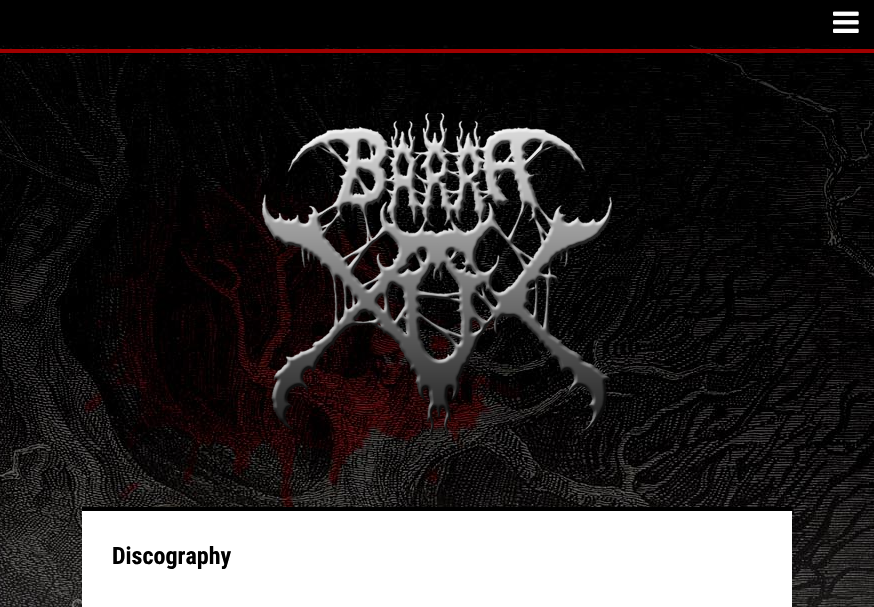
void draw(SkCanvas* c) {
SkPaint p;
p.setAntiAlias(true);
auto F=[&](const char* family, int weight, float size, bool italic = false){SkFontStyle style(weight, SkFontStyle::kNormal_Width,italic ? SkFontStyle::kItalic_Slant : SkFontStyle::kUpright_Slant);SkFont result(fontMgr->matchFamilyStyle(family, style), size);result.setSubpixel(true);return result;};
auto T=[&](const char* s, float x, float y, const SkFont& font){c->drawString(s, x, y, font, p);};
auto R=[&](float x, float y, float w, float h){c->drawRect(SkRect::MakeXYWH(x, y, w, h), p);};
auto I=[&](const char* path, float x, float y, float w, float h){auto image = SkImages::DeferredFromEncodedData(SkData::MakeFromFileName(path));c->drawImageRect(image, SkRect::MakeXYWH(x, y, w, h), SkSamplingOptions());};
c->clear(0xffffffff);
I("1.png",0,45,874,562);
p.setColor(0xffa00000);
R(0,49,874,4);
p.setColor(0xff000000);
R(0,0,874,45);
I("2.png",833,11,26,22);
I("3.png",262,113,350,324);
p.setColor(0xffffffff);
R(82,511,710,96);
p.setColor(0xff000000);
R(82,507,710,4);
auto f1 = F("Roboto Condensed",700,24);
T("Discography",112,564,f1);
}
